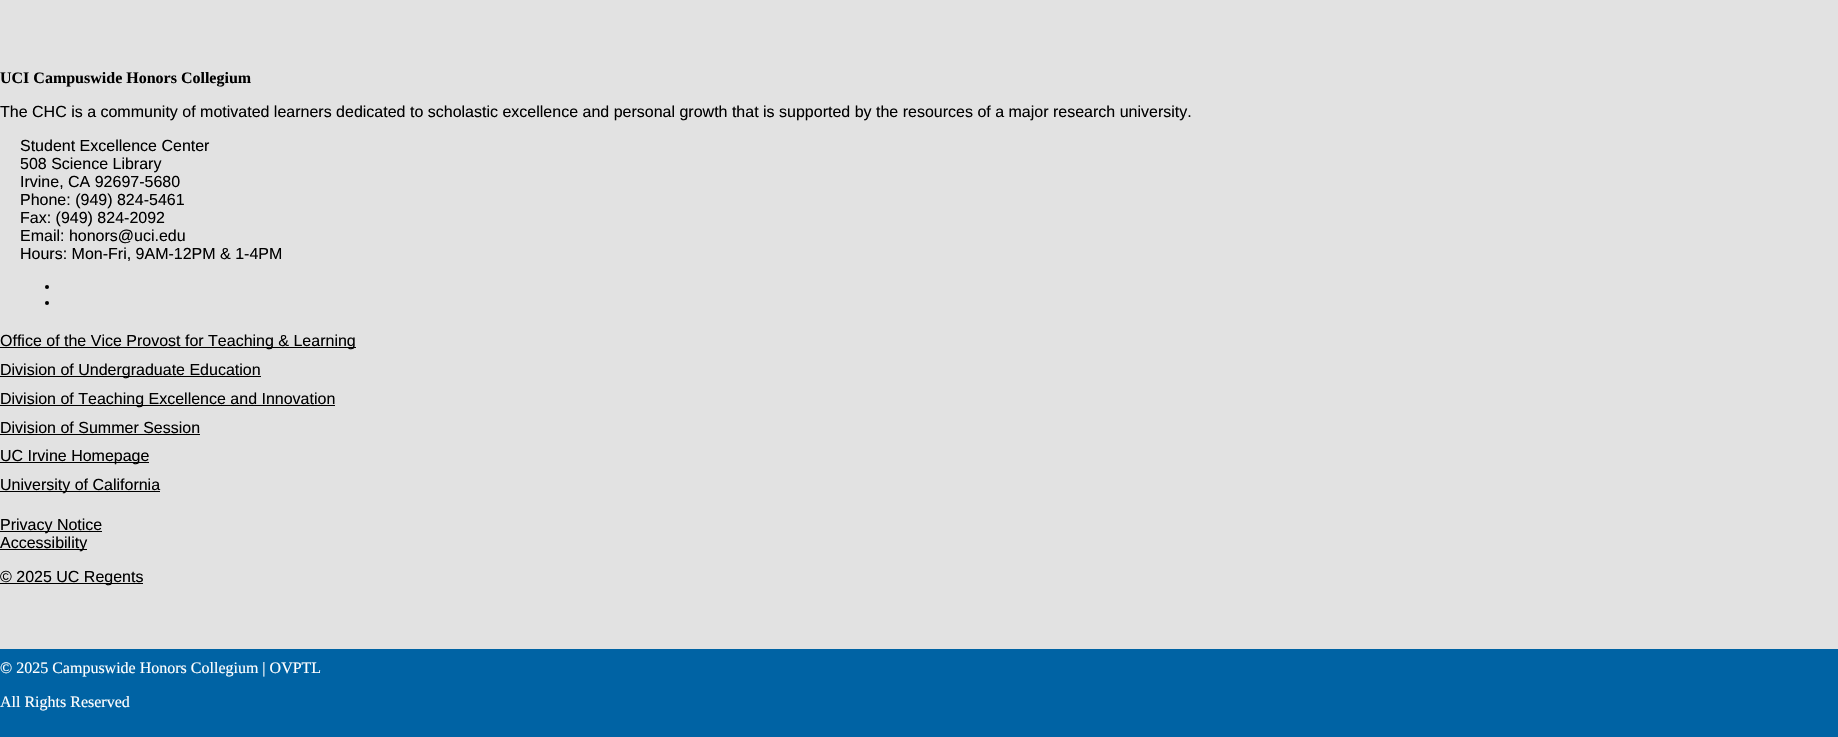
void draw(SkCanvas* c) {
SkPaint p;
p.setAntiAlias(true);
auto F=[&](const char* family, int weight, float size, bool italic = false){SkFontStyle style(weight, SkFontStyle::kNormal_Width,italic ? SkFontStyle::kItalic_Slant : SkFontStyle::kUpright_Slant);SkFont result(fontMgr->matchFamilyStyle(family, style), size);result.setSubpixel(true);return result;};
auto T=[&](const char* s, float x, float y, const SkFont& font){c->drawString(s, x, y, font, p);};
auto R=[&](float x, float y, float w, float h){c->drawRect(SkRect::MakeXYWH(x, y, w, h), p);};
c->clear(0xffe2e2e2);
auto f1 = F("Liberation Serif",700,16);
p.setColor(0xff000000);
T("UCI Campuswide Honors Collegium",0,83,f1);
auto f2 = F("Liberation Sans",400,16);
T("The CHC is a community of motivated learners dedicated to scholastic excellence and personal growth that is supported by the resources of a major research university.",0,117,f2);
T("Student Excellence Center",20,151,f2);
T("508 Science Library",20,169,f2);
T("Irvine, CA 92697-5680",20,187,f2);
T("Phone: (949) 824-5461",20,205,f2);
T("Fax: (949) 824-2092",20,223,f2);
T("Email: honors@uci.edu",20,241,f2);
T("Hours: Mon-Fri, 9AM-12PM & 1-4PM",20,259,f2);
c->drawCircle(47,287,2,p);
c->drawCircle(47,303,2,p);
R(0,347,356,1);
T("Office of the Vice Provost for Teaching & Learning",0,346,f2);
R(0,376,261,1);
T("Division of Undergraduate Education",0,375,f2);
R(0,405,335,1);
T("Division of Teaching Excellence and Innovation",0,404,f2);
T("Division of Summer Session",0,433,f2);
R(0,434,200,1);
R(0,462,149,1);
T("UC Irvine Homepage",0,461,f2);
R(0,491,160,1);
T("University of California",0,490,f2);
R(0,531,102,1);
T("Privacy Notice",0,530,f2);
R(0,549,87,1);
T("Accessibility",0,548,f2);
R(0,583,143,1);
T("© 2025 UC Regents",0,582,f2);
p.setColor(0xff0063a4);
R(0,649,1838,88);
auto f3 = F("Liberation Serif",400,16);
p.setColor(0xffffffff);
T("© 2025 Campuswide Honors Collegium | OVPTL",0,673,f3);
T("All Rights Reserved",0,707,f3);
}
